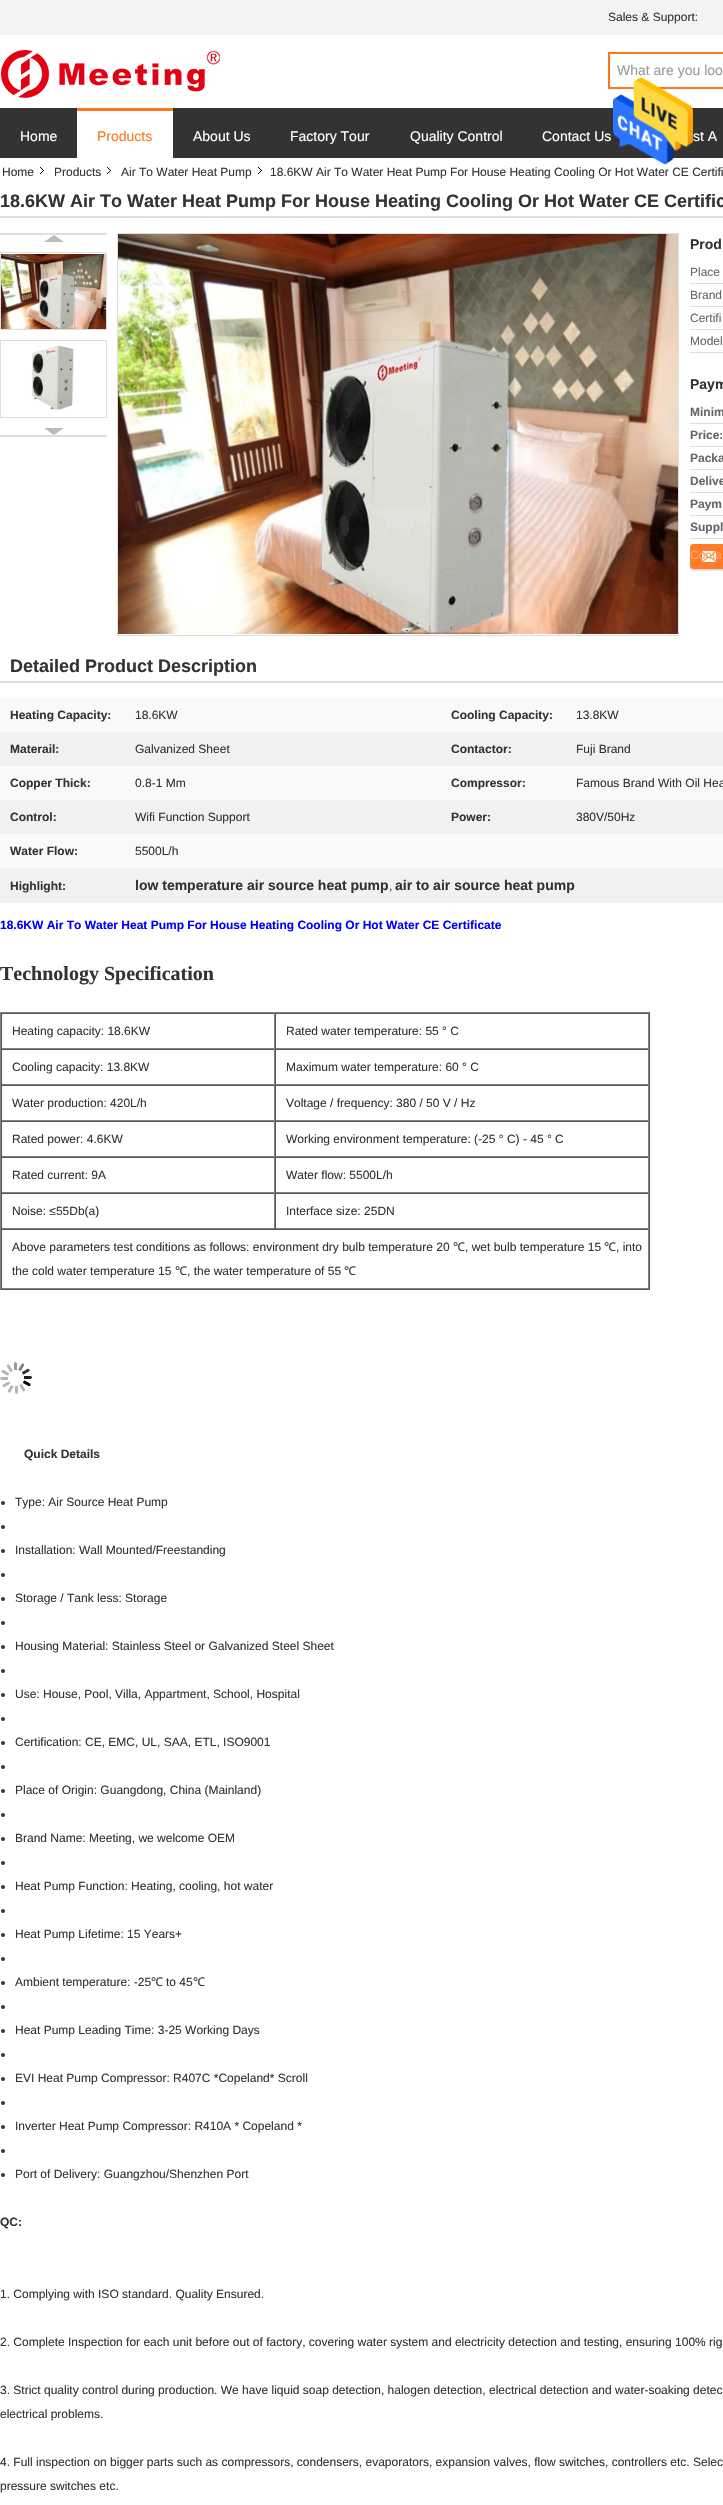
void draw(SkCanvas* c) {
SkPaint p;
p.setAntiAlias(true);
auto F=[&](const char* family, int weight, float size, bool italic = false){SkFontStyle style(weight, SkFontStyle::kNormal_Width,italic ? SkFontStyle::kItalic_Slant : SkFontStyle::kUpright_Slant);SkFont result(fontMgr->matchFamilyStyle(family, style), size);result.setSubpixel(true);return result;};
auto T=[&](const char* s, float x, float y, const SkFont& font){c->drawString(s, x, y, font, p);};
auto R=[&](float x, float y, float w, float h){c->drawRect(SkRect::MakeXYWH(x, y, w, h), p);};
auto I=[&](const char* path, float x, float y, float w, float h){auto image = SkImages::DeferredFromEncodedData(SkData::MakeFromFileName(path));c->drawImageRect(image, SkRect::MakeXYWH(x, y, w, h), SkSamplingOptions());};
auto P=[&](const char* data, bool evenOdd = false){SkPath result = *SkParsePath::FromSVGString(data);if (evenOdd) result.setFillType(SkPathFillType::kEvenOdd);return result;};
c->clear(0xffffffff);
p.setColor(0xfff3f3f3);
R(0,0,723,35);
I("1.png",1,50,219,48);
auto f1 = F("Liberation Sans",400,12);
p.setColor(0xff333333);
T("Sales & Support:",608,21,f1);
p.setColor(0xffff771c);
R(608,52,115,2);
R(608,87,115,2);
R(608,52,2,37);
auto f2 = F("Liberation Sans",400,14);
p.setColor(0xff999999);
T("What are you loo",617,75,f2);
p.setColor(0xff333333);
R(0,108,723,50);
p.setColor(0xffffffff);
T("Home",20,141,f2);
R(77,111,96,47);
p.setColor(0xffff771c);
R(77,108,96,3);
T("Products",97,141,f2);
p.setColor(0xffffffff);
T("About Us",193,141,f2);
T("Factory Tour",290,141,f2);
T("Quality Control",410,141,f2);
T("Contact Us",542,141,f2);
T("st A",693,141,f2);
I("2.png",613,77,80,88);
I("3.png",40,167,4,7);
p.setColor(0xff333333);
T("Home",2,176,f1);
I("4.png",107,167,5,7);
T("Products",54,176,f1);
I("3.png",258,167,4,7);
T("Air To Water Heat Pump",121,176,f1);
T("18.6KW Air To Water Heat Pump For House Heating Cooling Or Hot Water CE Certifi",270,176,f1);
p.setColor(0xffdddddd);
R(0,216,723,2);
auto f3 = F("Liberation Sans",700,18);
p.setColor(0xff333333);
T("18.6KW Air To Water Heat Pump For House Heating Cooling Or Hot Water CE Certific",0,207,f3);
p.setColor(0xffdedede);
R(0,233,107,2);
p.setColor(0xffbbbbbb);
c->drawPath(P("M64 242h-20l10-7z"),p);
p.setStroke(true);
p.setStrokeWidth(1);
p.setColor(0xffdedede);
c->drawRect(SkRect::MakeXYWH(.5,252.5,106,77),p);
I("5.png",1,254,105,75);
c->drawRect(SkRect::MakeXYWH(.5,340.5,106,77),p);
I("6.png",31,345,43,65);
p.setStroke(false);
R(0,435,107,2);
p.setColor(0xffbbbbbb);
c->drawPath(P("M44 428h20l-10 7z"),p);
p.setStroke(true);
p.setColor(0xffdedede);
c->drawRect(SkRect::MakeXYWH(117.5,233.5,561,402),p);
I("7.png",118,234,560,400);
auto f4 = F("Liberation Sans",700,14);
p.setStroke(false);
p.setColor(0xff333333);
T("Prod",690,249,f4);
p.setColor(0xffdedede);
R(690,283,33,1);
p.setColor(0xff666666);
T("Place",690,276,f1);
p.setColor(0xffdedede);
R(690,306,33,1);
p.setColor(0xff666666);
T("Brand",690,299,f1);
p.setColor(0xffdedede);
R(690,329,33,1);
p.setColor(0xff666666);
T("Certifi",690,322,f1);
p.setColor(0xffdedede);
R(690,352,33,1);
p.setColor(0xff666666);
T("Model",690,345,f1);
p.setColor(0xff333333);
T("Paym",690,389,f4);
p.setColor(0xffdedede);
R(690,423,33,1);
auto f5 = F("Liberation Sans",700,12);
p.setColor(0xff666666);
T("Minim",690,416,f5);
p.setColor(0xffdedede);
R(690,446,33,1);
p.setColor(0xff666666);
T("Price:",690,439,f5);
p.setColor(0xffdedede);
R(690,469,33,1);
p.setColor(0xff666666);
T("Packa",690,462,f5);
p.setColor(0xffdedede);
R(690,492,33,1);
p.setColor(0xff666666);
T("Delive",690,485,f5);
p.setColor(0xffdedede);
R(690,515,33,1);
p.setColor(0xff666666);
T("Paym",690,508,f5);
p.setColor(0xffdedede);
R(690,538,33,1);
p.setColor(0xff666666);
T("Suppl",690,531,f5);
I("8.png",690,544,33,27);
p.setColor(0xffffa56c);
T("Conta",690,559,f1);
p.setColor(0xffdedede);
R(0,681,723,2);
p.setColor(0xff333333);
T("Detailed Product Description",10,672,f3);
p.setColor(0xfff9f9f9);
R(0,698,723,170);
p.setColor(0xff333333);
T("Heating Capacity:",10,719,f5);
T("18.6KW",135,719,f1);
T("Cooling Capacity:",451,719,f5);
T("13.8KW",576,719,f1);
p.setColor(0xfff1f1f1);
R(0,732,723,34);
p.setColor(0xff333333);
T("Materail:",10,753,f5);
T("Galvanized Sheet",135,753,f1);
T("Contactor:",451,753,f5);
T("Fuji Brand",576,753,f1);
T("Copper Thick:",10,787,f5);
T("0.8-1 Mm",135,787,f1);
T("Compressor:",451,787,f5);
T("Famous Brand With Oil Hea",576,787,f1);
p.setColor(0xfff1f1f1);
R(0,800,723,34);
p.setColor(0xff333333);
T("Control:",10,821,f5);
T("Wifi Function Support",135,821,f1);
T("Power:",451,821,f5);
T("380V/50Hz",576,821,f1);
T("Water Flow:",10,855,f5);
T("5500L/h",135,855,f1);
p.setColor(0xfff1f1f1);
R(0,868,723,35);
p.setColor(0xff333333);
T("Highlight:",10,890,f5);
T("low temperature air source heat pump",135,890,f4);
T(",",389,890,f1);
T("air to air source heat pump",395,890,f4);
p.setColor(0xff0000ff);
T("18.6KW Air To Water Heat Pump For House Heating Cooling Or Hot Water CE Certificate",0,929,f5);
auto f6 = F("Liberation Serif",700,20);
p.setColor(0xff333333);
T("Technology Specification",0,980,f6);
p.setColor(0xff808080);
R(0,1012,650,1);
p.setColor(0xff555555);
R(649,1012,1,278);
R(0,1289,650,1);
p.setColor(0xff808080);
R(0,1012,1,278);
p.setColor(0xff555555);
R(1,1013,648,1);
p.setColor(0xff808080);
R(274,1013,1,36);
R(1,1048,274,1);
p.setColor(0xff555555);
R(1,1013,1,36);
p.setColor(0xff333333);
T("Heating capacity: 18.6KW",12,1035,f1);
p.setColor(0xff808080);
R(648,1013,1,36);
R(275,1048,374,1);
p.setColor(0xff555555);
R(275,1013,1,36);
p.setColor(0xff333333);
T("Rated water temperature: 55 ° C",286,1035,f1);
p.setColor(0xff555555);
R(1,1049,648,1);
p.setColor(0xff808080);
R(274,1049,1,36);
R(1,1084,274,1);
p.setColor(0xff555555);
R(1,1049,1,36);
p.setColor(0xff333333);
T("Cooling capacity: 13.8KW",12,1071,f1);
p.setColor(0xff808080);
R(648,1049,1,36);
R(275,1084,374,1);
p.setColor(0xff555555);
R(275,1049,1,36);
p.setColor(0xff333333);
T("Maximum water temperature: 60 ° C",286,1071,f1);
p.setColor(0xff555555);
R(1,1085,648,1);
p.setColor(0xff808080);
R(274,1085,1,36);
R(1,1120,274,1);
p.setColor(0xff555555);
R(1,1085,1,36);
p.setColor(0xff333333);
T("Water production: 420L/h",12,1107,f1);
p.setColor(0xff808080);
R(648,1085,1,36);
R(275,1120,374,1);
p.setColor(0xff555555);
R(275,1085,1,36);
p.setColor(0xff333333);
T("Voltage / frequency: 380 / 50 V / Hz",286,1107,f1);
p.setColor(0xff555555);
R(1,1121,648,1);
p.setColor(0xff808080);
R(274,1121,1,36);
R(1,1156,274,1);
p.setColor(0xff555555);
R(1,1121,1,36);
p.setColor(0xff333333);
T("Rated power: 4.6KW",12,1143,f1);
p.setColor(0xff808080);
R(648,1121,1,36);
R(275,1156,374,1);
p.setColor(0xff555555);
R(275,1121,1,36);
p.setColor(0xff333333);
T("Working environment temperature: (-25 ° C) - 45 ° C",286,1143,f1);
p.setColor(0xff555555);
R(1,1157,648,1);
p.setColor(0xff808080);
R(274,1157,1,36);
R(1,1192,274,1);
p.setColor(0xff555555);
R(1,1157,1,36);
p.setColor(0xff333333);
T("Rated current: 9A",12,1179,f1);
p.setColor(0xff808080);
R(648,1157,1,36);
R(275,1192,374,1);
p.setColor(0xff555555);
R(275,1157,1,36);
p.setColor(0xff333333);
T("Water flow: 5500L/h",286,1179,f1);
p.setColor(0xff555555);
R(1,1193,648,1);
p.setColor(0xff808080);
R(274,1193,1,36);
R(1,1228,274,1);
p.setColor(0xff555555);
R(1,1193,1,36);
p.setColor(0xff333333);
T("Noise: ≤55Db(a)",12,1215,f1);
p.setColor(0xff808080);
R(648,1193,1,36);
R(275,1228,374,1);
p.setColor(0xff555555);
R(275,1193,1,36);
p.setColor(0xff333333);
T("Interface size: 25DN",286,1215,f1);
p.setColor(0xff555555);
R(1,1229,648,1);
p.setColor(0xff808080);
R(648,1229,1,60);
R(1,1288,648,1);
p.setColor(0xff555555);
R(1,1229,1,60);
p.setColor(0xff333333);
T("Above parameters test conditions as follows: environment dry bulb temperature 20",12,1251,f1);
auto f7 = F("Noto Sans",400,12);
T("℃",453,1251,f7);
T(", wet bulb temperature 15",465,1251,f1);
T("℃",604,1251,f7);
T(", into",616,1251,f1);
T("the cold water temperature 15",12,1275,f1);
T("℃",175,1275,f7);
T(", the water temperature of 55",187,1275,f1);
T("℃",344,1275,f7);
I("9.png",0,1362,32,32);
T("Quick Details",24,1458,f5);
c->drawCircle(3,1503,2,p);
T("Type: Air Source Heat Pump",15,1506,f1);
c->drawCircle(3,1527,2,p);
c->drawCircle(3,1551,2,p);
T("Installation: Wall Mounted/Freestanding",15,1554,f1);
c->drawCircle(3,1575,2,p);
c->drawCircle(3,1599,2,p);
T("Storage / Tank less: Storage",15,1602,f1);
c->drawCircle(3,1623,2,p);
c->drawCircle(3,1647,2,p);
T("Housing Material: Stainless Steel or Galvanized Steel Sheet",15,1650,f1);
c->drawCircle(3,1671,2,p);
c->drawCircle(3,1695,2,p);
T("Use: House, Pool, Villa, Appartment, School, Hospital",15,1698,f1);
c->drawCircle(3,1719,2,p);
c->drawCircle(3,1743,2,p);
T("Certification: CE, EMC, UL, SAA, ETL, ISO9001",15,1746,f1);
c->drawCircle(3,1767,2,p);
c->drawCircle(3,1791,2,p);
T("Place of Origin: Guangdong, China (Mainland)",15,1794,f1);
c->drawCircle(3,1815,2,p);
c->drawCircle(3,1839,2,p);
T("Brand Name: Meeting, we welcome OEM",15,1842,f1);
c->drawCircle(3,1863,2,p);
c->drawCircle(3,1887,2,p);
T("Heat Pump Function: Heating, cooling, hot water",15,1890,f1);
c->drawCircle(3,1911,2,p);
c->drawCircle(3,1935,2,p);
T("Heat Pump Lifetime: 15 Years+",15,1938,f1);
c->drawCircle(3,1959,2,p);
c->drawCircle(3,1983,2,p);
T("Ambient temperature: -25",15,1986,f1);
T("℃",151,1986,f7);
T("to 45",166,1986,f1);
T("℃",193,1986,f7);
c->drawCircle(3,2007,2,p);
c->drawCircle(3,2031,2,p);
T("Heat Pump Leading Time: 3-25 Working Days",15,2034,f1);
c->drawCircle(3,2055,2,p);
c->drawCircle(3,2079,2,p);
T("EVI Heat Pump Compressor: R407C *Copeland* Scroll",15,2082,f1);
c->drawCircle(3,2103,2,p);
c->drawCircle(3,2127,2,p);
T("Inverter Heat Pump Compressor: R410A * Copeland *",15,2130,f1);
c->drawCircle(3,2151,2,p);
c->drawCircle(3,2175,2,p);
T("Port of Delivery: Guangzhou/Shenzhen Port",15,2178,f1);
T("QC:",0,2226,f5);
T("1. Complying with ISO standard. Quality Ensured.",0,2298,f1);
T("2. Complete Inspection for each unit before out of factory, covering water system and electricity detection and testing, ensuring 100% rig",0,2346,f1);
T("3. Strict quality control during production. We have liquid soap detection, halogen detection, electrical detection and water-soaking detec",0,2394,f1);
T("electrical problems.",0,2418,f1);
T("4. Full inspection on bigger parts such as compressors, condensers, evaporators, expansion valves, flow switches, controllers etc. Selec",0,2466,f1);
T("pressure switches etc.",0,2490,f1);
}
